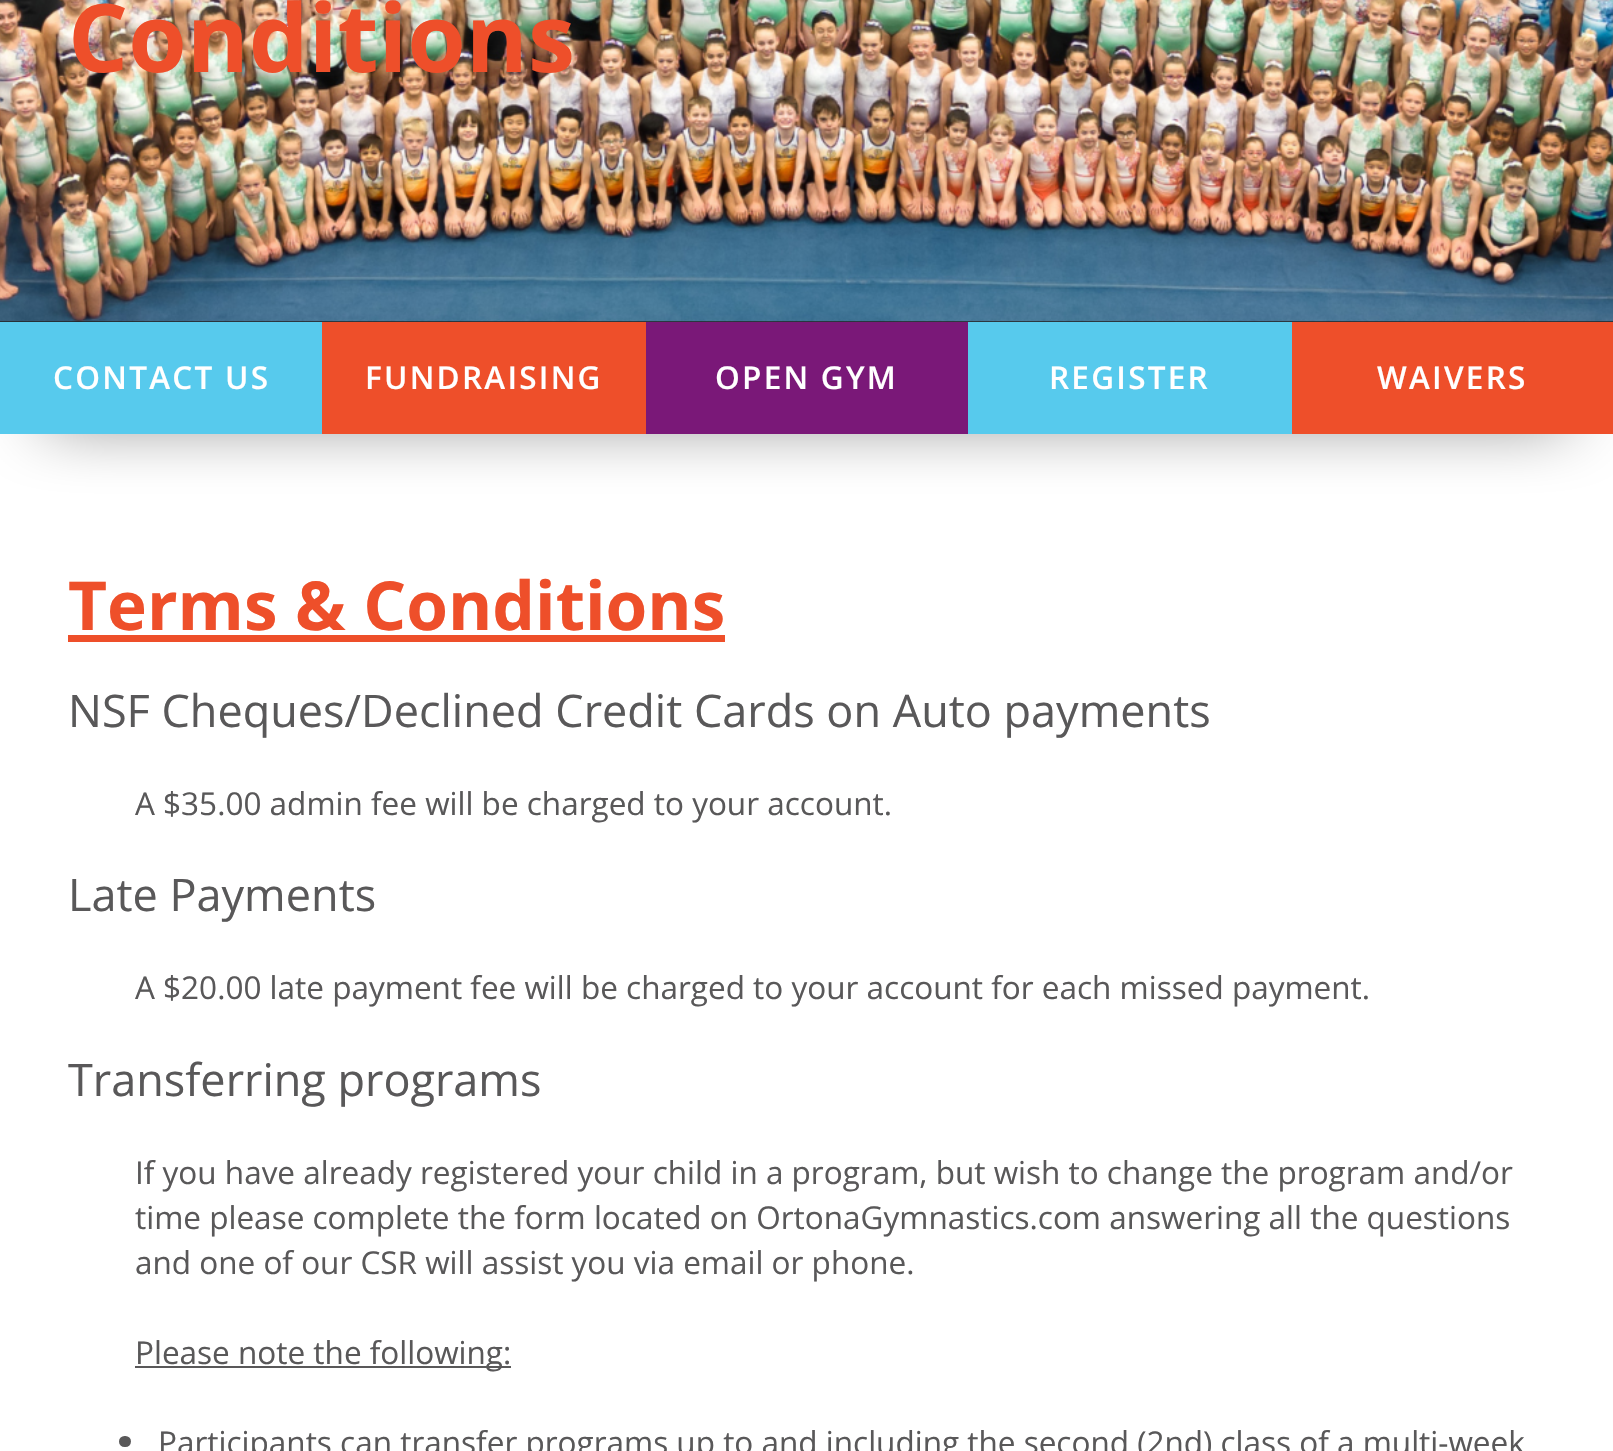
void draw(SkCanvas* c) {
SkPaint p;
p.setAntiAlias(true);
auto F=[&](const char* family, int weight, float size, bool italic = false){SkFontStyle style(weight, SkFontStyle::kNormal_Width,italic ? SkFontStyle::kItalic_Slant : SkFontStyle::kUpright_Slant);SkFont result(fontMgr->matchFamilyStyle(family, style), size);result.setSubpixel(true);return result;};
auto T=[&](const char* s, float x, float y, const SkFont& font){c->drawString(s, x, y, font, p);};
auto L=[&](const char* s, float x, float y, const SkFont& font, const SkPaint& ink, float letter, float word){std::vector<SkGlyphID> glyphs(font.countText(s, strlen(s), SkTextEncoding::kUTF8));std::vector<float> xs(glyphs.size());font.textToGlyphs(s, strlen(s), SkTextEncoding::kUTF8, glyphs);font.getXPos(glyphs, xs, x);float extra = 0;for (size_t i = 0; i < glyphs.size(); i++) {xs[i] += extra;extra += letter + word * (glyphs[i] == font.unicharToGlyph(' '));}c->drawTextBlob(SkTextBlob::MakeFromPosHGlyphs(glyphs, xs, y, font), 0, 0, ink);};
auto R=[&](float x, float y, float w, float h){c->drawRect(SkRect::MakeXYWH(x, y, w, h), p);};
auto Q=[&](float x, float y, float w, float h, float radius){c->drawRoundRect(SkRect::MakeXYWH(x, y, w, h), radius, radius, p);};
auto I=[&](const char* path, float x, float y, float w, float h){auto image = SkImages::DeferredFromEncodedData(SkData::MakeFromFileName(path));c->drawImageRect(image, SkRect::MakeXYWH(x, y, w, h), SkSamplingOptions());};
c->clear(0xffffffff);
p.setColor(0xff222222);
R(0,321,1613,1);
I("1.png",0,0,1613,322);
auto f1 = F("Open Sans",700,94.5);
p.setColor(0xffee4f2a);
T("Conditions",68,72,f1);
p.setColor(0xff000000);
p.setMaskFilter(SkMaskFilter::MakeBlur(kNormal_SkBlurStyle, 34));
c->drawRect(SkRect::MakeXYWH(45,389,1523,23),p);
p.setMaskFilter(nullptr);
p.setColor(0xff57caed);
R(0,322,322,112);
p.setColor(0xffee4f2a);
R(1292,322,321,112);
auto f2 = F("Open Sans",600,31.5);
p.setColor(0xffffffff);
L("CONTACT US",53,389,f2,p,2.25,0);
p.setColor(0xffee4f2a);
R(322,322,324,112);
p.setColor(0xffffffff);
L("FUNDRAISING",365,389,f2,p,2.25,0);
p.setColor(0xff7a1878);
R(646,322,322,112);
p.setColor(0xffffffff);
L("OPEN GYM",715,389,f2,p,2.25,0);
p.setColor(0xff57caed);
R(968,322,324,112);
p.setColor(0xffffffff);
L("REGISTER",1049,389,f2,p,2.25,0);
L("WAIVERS",1377,389,f2,p,2.25,0);
auto f3 = F("Open Sans",700,67.5);
p.setColor(0xffee4f2a);
T("Terms & Conditions",68,630,f3);
R(68,635,657,7);
auto f4 = F("Open Sans",400,45);
p.setColor(0xff595859);
T("NSF Cheques/Declined Credit Cards on Auto payments",68,727,f4);
auto f5 = F("Open Sans",400,31.5);
T("A $35.00 admin fee will be charged to your account.",135,815,f5);
T("Late Payments",68,911,f4);
T("A $20.00 late payment fee will be charged to your account for each missed payment.",135,999,f5);
T("Transferring programs",68,1096,f4);
T("If you have already registered your child in a program, but wish to change the program and/or",135,1184,f5);
T("time please complete the form located on OrtonaGymnastics.com answering all the questions",135,1229,f5);
T("and one of our CSR will assist you via email or phone.",135,1274,f5);
R(135,1366,376,2);
T("Please note the following:",135,1364,f5);
Q(119,1436,12,11,5.5);
T("Participants can transfer programs up to and including the second (2nd) class of a multi-week",158,1454,f5);
}
